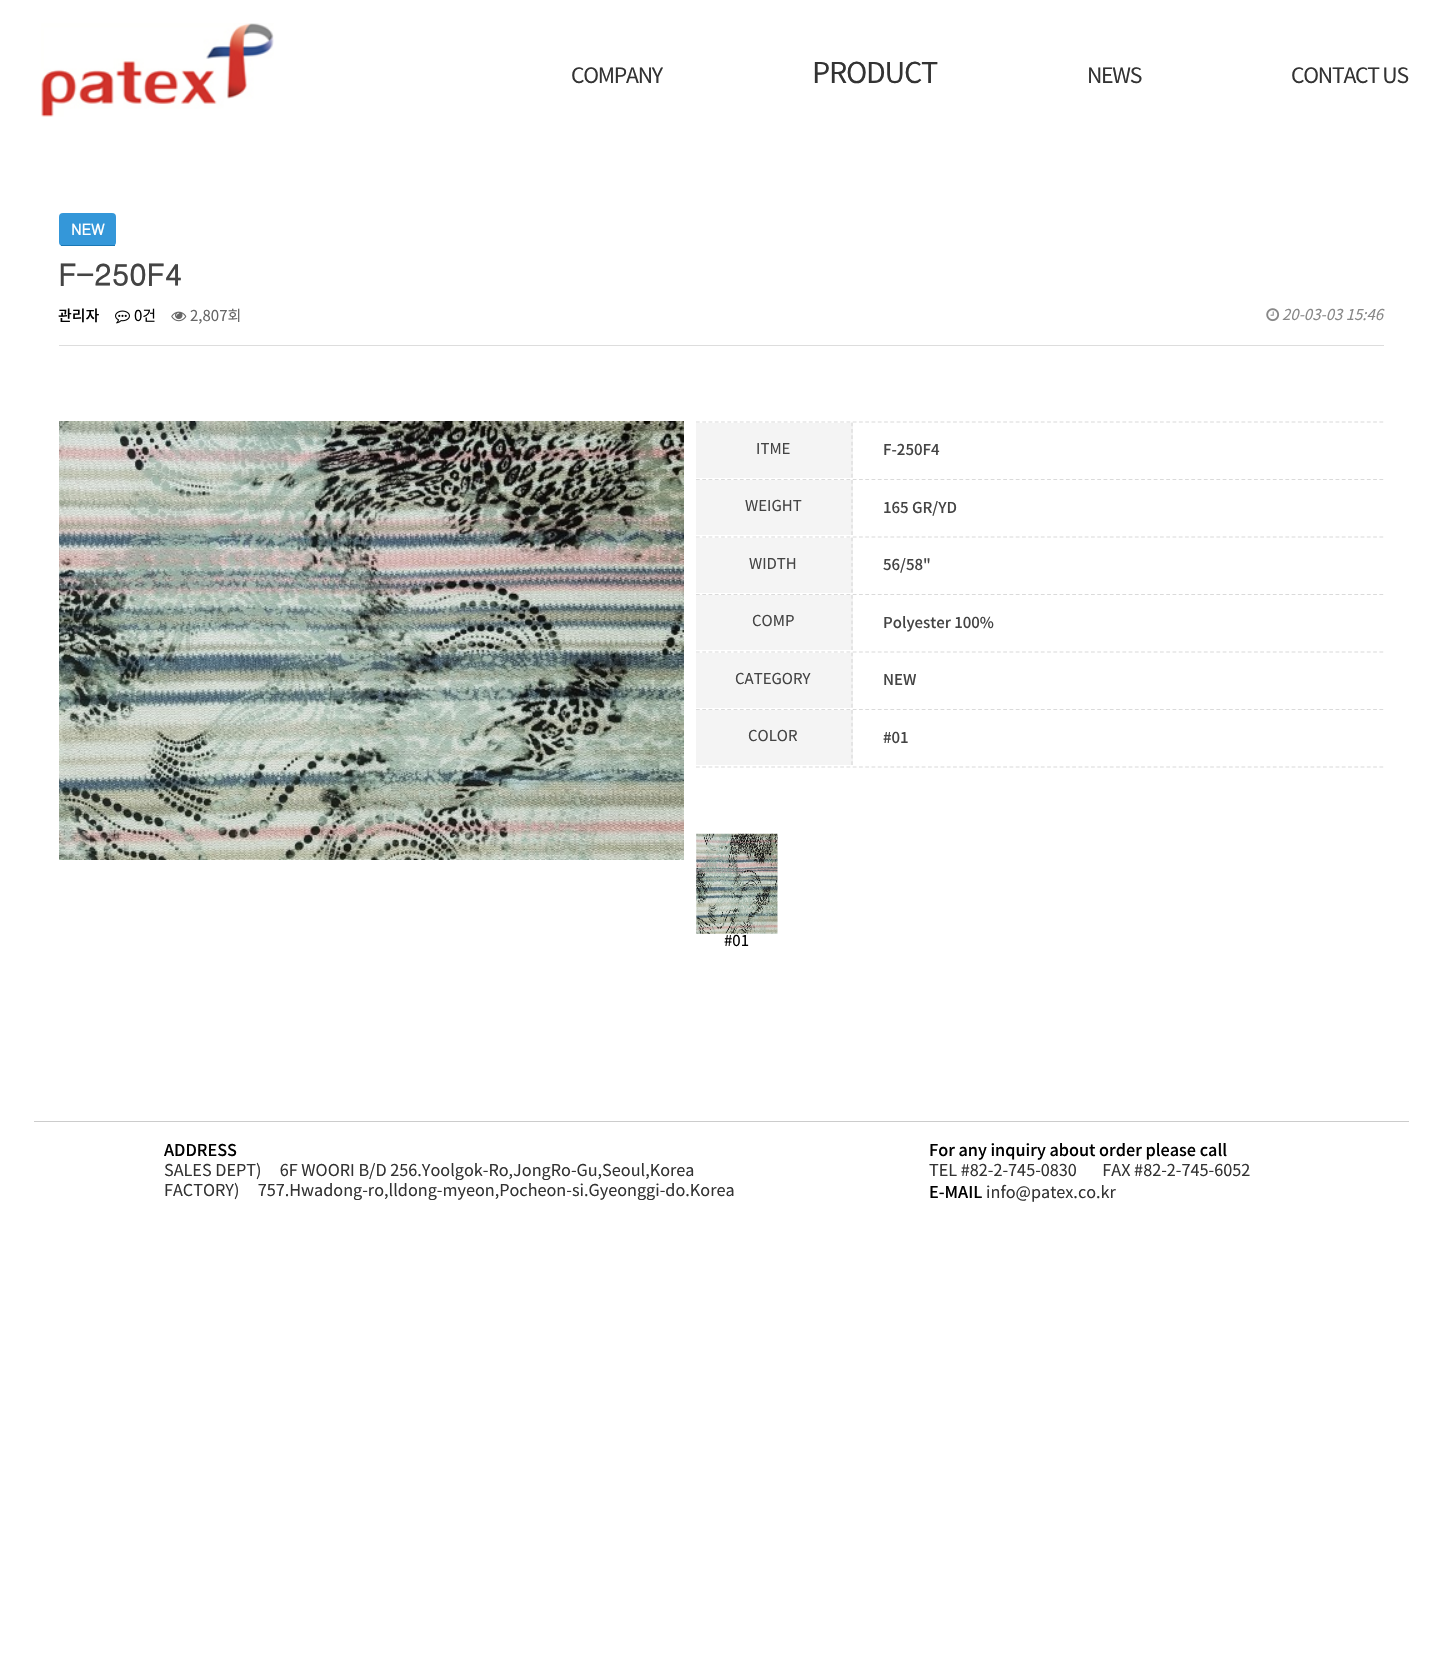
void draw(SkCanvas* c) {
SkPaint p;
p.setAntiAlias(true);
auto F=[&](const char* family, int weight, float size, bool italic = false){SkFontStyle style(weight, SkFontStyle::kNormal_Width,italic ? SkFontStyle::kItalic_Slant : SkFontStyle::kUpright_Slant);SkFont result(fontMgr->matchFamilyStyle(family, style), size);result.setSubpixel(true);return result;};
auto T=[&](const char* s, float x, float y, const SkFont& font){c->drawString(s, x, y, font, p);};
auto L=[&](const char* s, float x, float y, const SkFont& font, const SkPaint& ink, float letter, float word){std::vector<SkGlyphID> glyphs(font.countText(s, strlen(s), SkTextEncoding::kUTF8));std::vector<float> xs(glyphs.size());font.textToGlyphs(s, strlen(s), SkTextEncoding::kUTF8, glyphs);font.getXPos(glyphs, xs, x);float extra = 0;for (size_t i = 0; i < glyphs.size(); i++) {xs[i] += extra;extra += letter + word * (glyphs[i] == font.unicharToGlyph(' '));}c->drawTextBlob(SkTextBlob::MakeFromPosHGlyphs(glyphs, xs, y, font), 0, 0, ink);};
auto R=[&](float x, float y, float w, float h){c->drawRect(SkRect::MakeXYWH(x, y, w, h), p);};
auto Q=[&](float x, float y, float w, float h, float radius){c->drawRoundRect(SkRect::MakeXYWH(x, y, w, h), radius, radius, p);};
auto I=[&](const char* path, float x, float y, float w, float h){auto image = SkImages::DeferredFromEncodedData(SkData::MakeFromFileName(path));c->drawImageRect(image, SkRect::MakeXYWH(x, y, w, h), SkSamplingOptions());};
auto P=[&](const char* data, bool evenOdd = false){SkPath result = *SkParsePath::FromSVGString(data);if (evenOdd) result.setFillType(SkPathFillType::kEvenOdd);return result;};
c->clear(0xffffffff);
I("1.png",41,23,233,94);
auto f1 = F("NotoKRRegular",400,21.25);
p.setColor(0xff333333);
L("COMPANY",571,83,f1,p,-1.25,0);
auto f2 = F("NotoKRRegular",400,28.75);
L("PRODUCT",812,83,f2,p,-1.25,0);
L("NEWS",1087,83,f1,p,-1.25,0);
L("CONTACT US",1291,83,f1,p,-1.25,0);
p.setColor(0xff3497d9);
Q(59,213,57,33,4);
p.setColor(0xff1977b5);
R(61,245,54,1);
auto f3 = F("Dotum",700,15);
p.setColor(0xffffffff);
T("NEW",71,235,f3);
auto f4 = F("Dotum",700,30);
p.setColor(0xff444444);
T("F-250F4",58,286,f4);
p.setColor(0xffdddddd);
R(59,345,1325,1);
auto f5 = F("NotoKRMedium",500,15);
p.setColor(0xff000000);
T("관리자",58,321,f5);
I("2.png",115,310,15,14);
auto f6 = F("NotoKRRegular",400,15);
T("0건",134,321,f6);
I("3.png",171,311,16,11);
p.setColor(0xff666666);
T("2,807회",190,321,f6);
I("4.png",1266,308,14,14);
auto f7 = F("NotoKRRegular",400,15,true);
p.setColor(0xff888888);
T("20-03-03 15:46",1282,320,f7);
I("5.png",59,421,625,439);
p.setStroke(true);
p.setStrokeWidth(1.2);
p.setColor(0xffdadada);
p.setPathEffect(SkDashPathEffect::Make({{3.75f,2.52f}}, 0));
c->drawPath(P("M696 422h688"),p);
p.setPathEffect(nullptr);
p.setPathEffect(SkDashPathEffect::Make({{3.75f,2.52f}}, 0));
c->drawPath(P("M696 479.5h688"),p);
p.setPathEffect(nullptr);
p.setStroke(false);
p.setColor(0xfff4f4f4);
R(696,423,157,55);
p.setStroke(true);
p.setColor(0xffdadada);
p.setPathEffect(SkDashPathEffect::Make({{3.75f,2.65f}}, 0));
c->drawPath(P("M852 422.5v55"),p);
p.setPathEffect(nullptr);
p.setStroke(false);
p.setColor(0xff444444);
T("ITME",756,454,f6);
T("F-250F4",883,455,f5);
p.setStroke(true);
p.setColor(0xffdadada);
p.setPathEffect(SkDashPathEffect::Make({{3.75f,2.52f}}, 0));
c->drawPath(P("M696 537h688"),p);
p.setPathEffect(nullptr);
p.setStroke(false);
p.setColor(0xfff4f4f4);
R(696,480,157,55);
p.setStroke(true);
p.setColor(0xffdadada);
p.setPathEffect(SkDashPathEffect::Make({{3.75f,2.65f}}, 0));
c->drawPath(P("M852 480v55"),p);
p.setPathEffect(nullptr);
p.setStroke(false);
p.setColor(0xff444444);
T("WEIGHT",745,511,f6);
T("165 GR/YD",883,513,f5);
p.setStroke(true);
p.setColor(0xffdadada);
p.setPathEffect(SkDashPathEffect::Make({{3.75f,2.52f}}, 0));
c->drawPath(P("M696 594.5h688"),p);
p.setPathEffect(nullptr);
p.setStroke(false);
p.setColor(0xfff4f4f4);
R(696,538,157,55);
p.setStroke(true);
p.setColor(0xffdadada);
p.setPathEffect(SkDashPathEffect::Make({{3.75f,2.65f}}, 0));
c->drawPath(P("M852 537.5v55"),p);
p.setPathEffect(nullptr);
p.setStroke(false);
p.setColor(0xff444444);
T("WIDTH",749,569,f6);
T("56/58\"",883,570,f5);
p.setStroke(true);
p.setColor(0xffdadada);
p.setPathEffect(SkDashPathEffect::Make({{3.75f,2.52f}}, 0));
c->drawPath(P("M696 652h688"),p);
p.setPathEffect(nullptr);
p.setStroke(false);
p.setColor(0xfff4f4f4);
R(696,595,157,55);
p.setStroke(true);
p.setColor(0xffdadada);
p.setPathEffect(SkDashPathEffect::Make({{3.75f,2.65f}}, 0));
c->drawPath(P("M852 595v55"),p);
p.setPathEffect(nullptr);
p.setStroke(false);
p.setColor(0xff444444);
T("COMP",752,626,f6);
T("Polyester 100%",883,628,f5);
p.setStroke(true);
p.setColor(0xffdadada);
p.setPathEffect(SkDashPathEffect::Make({{3.75f,2.52f}}, 0));
c->drawPath(P("M696 709.5h688"),p);
p.setPathEffect(nullptr);
p.setStroke(false);
p.setColor(0xfff4f4f4);
R(696,653,157,55);
p.setStroke(true);
p.setColor(0xffdadada);
p.setPathEffect(SkDashPathEffect::Make({{3.75f,2.65f}}, 0));
c->drawPath(P("M852 652.5v55"),p);
p.setPathEffect(nullptr);
p.setStroke(false);
p.setColor(0xff444444);
T("CATEGORY",735,684,f6);
T("NEW",883,685,f5);
p.setStroke(true);
p.setColor(0xffdadada);
p.setPathEffect(SkDashPathEffect::Make({{3.75f,2.52f}}, 0));
c->drawPath(P("M696 767h688"),p);
p.setPathEffect(nullptr);
p.setStroke(false);
p.setColor(0xfff4f4f4);
R(696,710,157,55);
p.setStroke(true);
p.setColor(0xffdadada);
p.setPathEffect(SkDashPathEffect::Make({{3.75f,2.65f}}, 0));
c->drawPath(P("M852 710v55"),p);
p.setPathEffect(nullptr);
p.setStroke(false);
p.setColor(0xff444444);
T("COLOR",748,741,f6);
T("#01",883,743,f5);
I("6.png",696,833,82,101);
p.setColor(0xff000000);
T("#01",724,946,f6);
p.setColor(0xffcccccc);
R(34,1121,1375,1);
auto f8 = F("NotoKRMedium",500,16.25);
p.setColor(0xff000000);
T("ADDRESS",164,1156,f8);
auto f9 = F("NotoKRRegular",400,16.25);
p.setColor(0xff333333);
T("SALES DEPT)     6F WOORI B/D 256.Yoolgok-Ro,JongRo-Gu,Seoul,Korea",164,1176,f9);
T("FACTORY)     757.Hwadong-ro,lldong-myeon,Pocheon-si.Gyeonggi-do.Korea",164,1196,f9);
p.setColor(0xff000000);
T("For any inquiry about order please call",929,1156,f8);
p.setColor(0xff333333);
T("TEL #82-2-745-0830       FAX #82-2-745-6052",929,1176,f9);
p.setColor(0xff000000);
T("E-MAIL",929,1198,f8);
p.setColor(0xff333333);
T("info@patex.co.kr",986,1198,f9);
}
